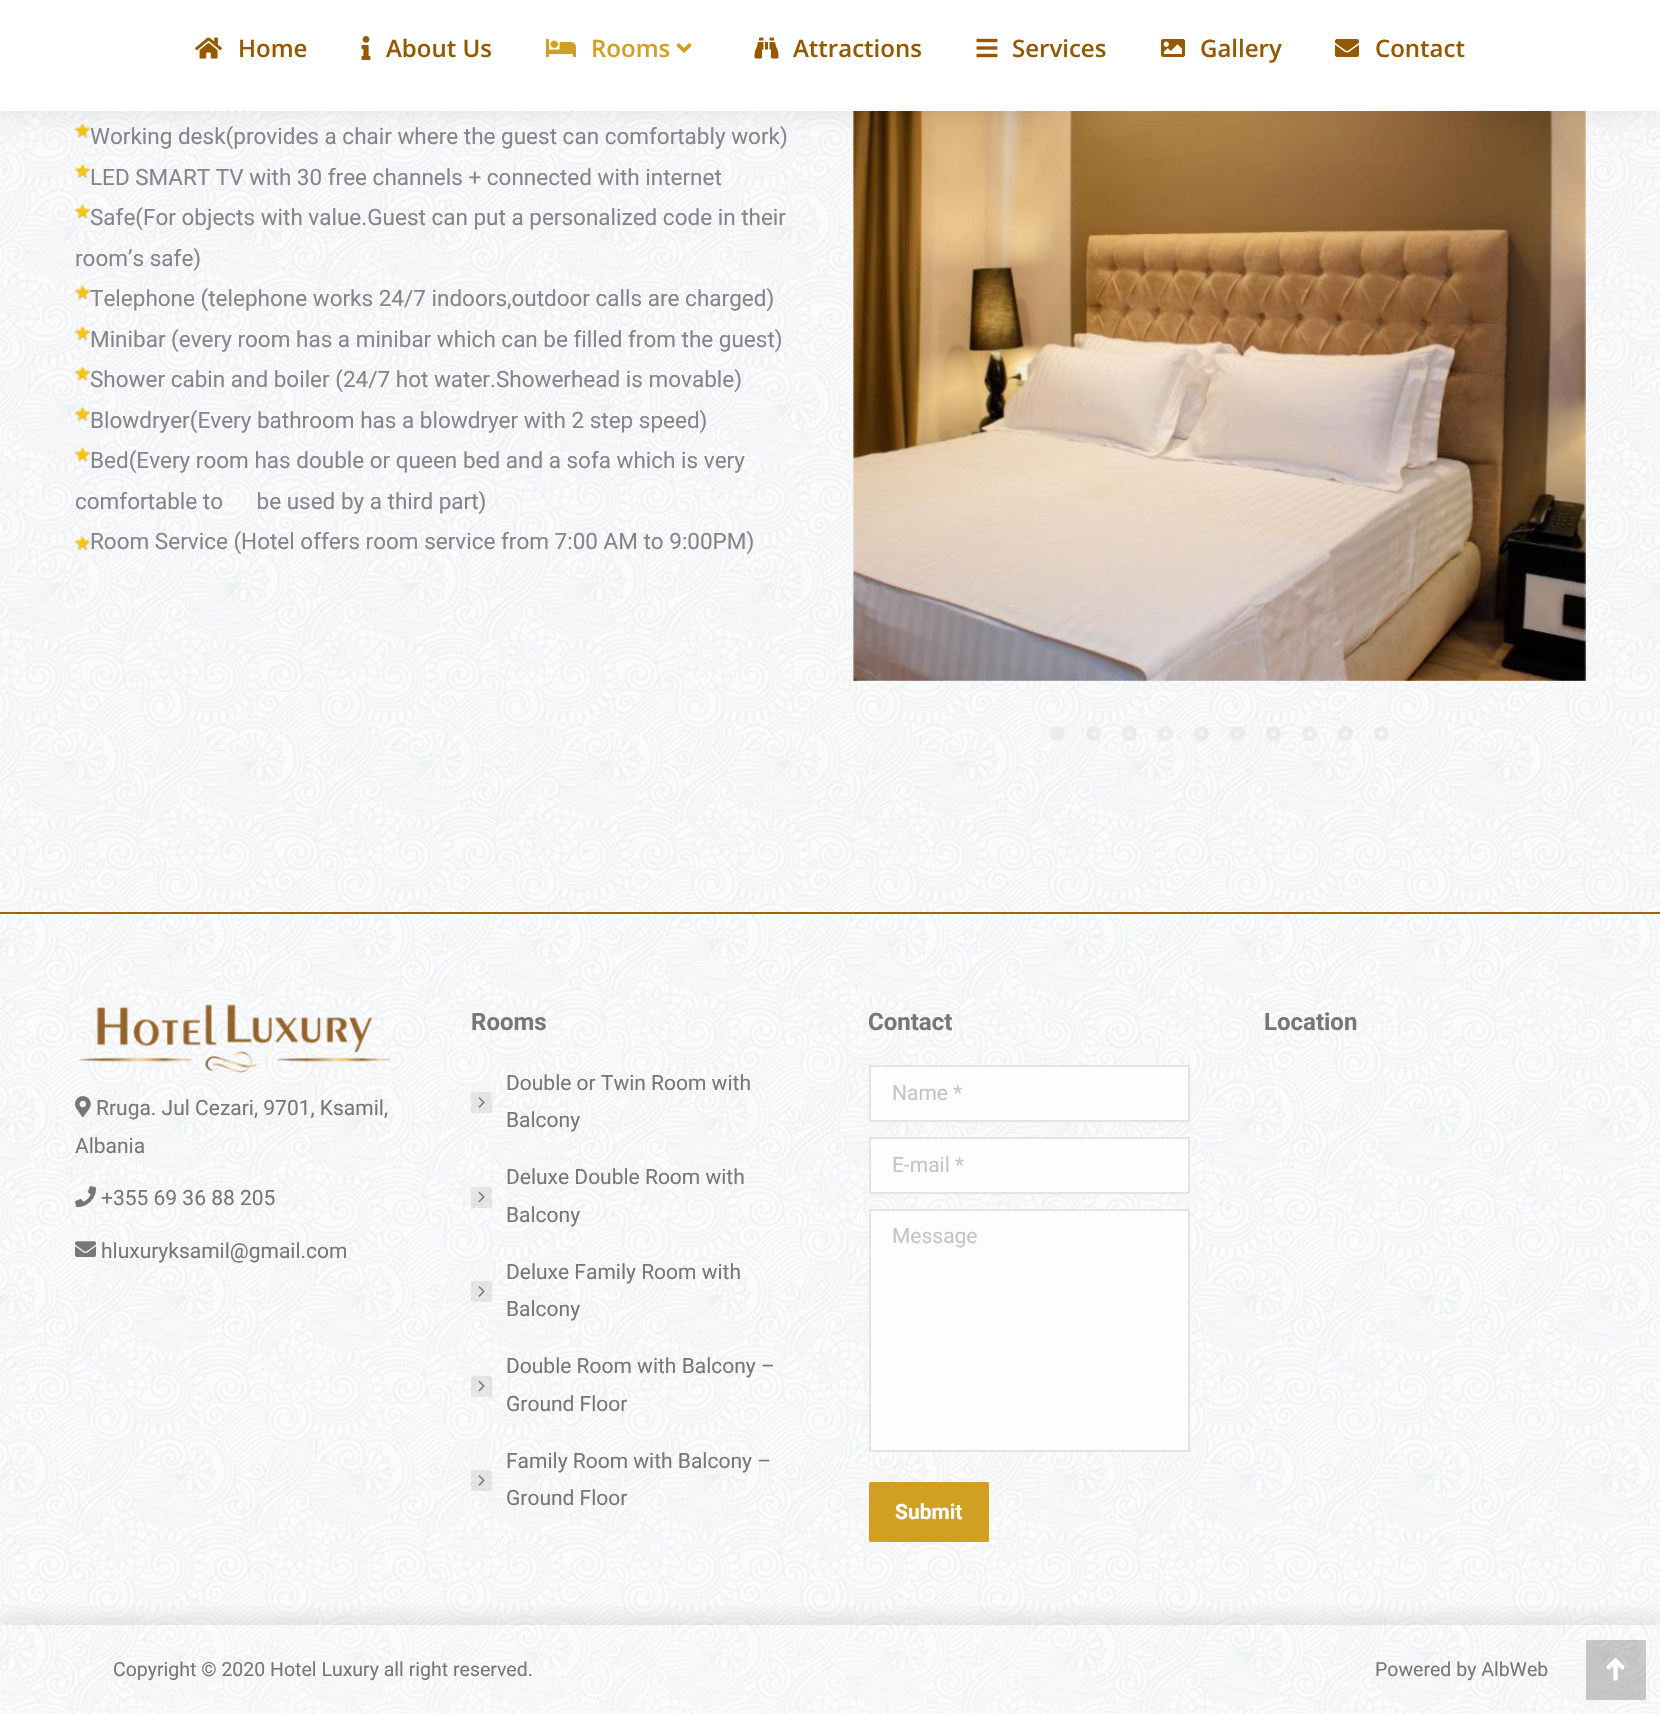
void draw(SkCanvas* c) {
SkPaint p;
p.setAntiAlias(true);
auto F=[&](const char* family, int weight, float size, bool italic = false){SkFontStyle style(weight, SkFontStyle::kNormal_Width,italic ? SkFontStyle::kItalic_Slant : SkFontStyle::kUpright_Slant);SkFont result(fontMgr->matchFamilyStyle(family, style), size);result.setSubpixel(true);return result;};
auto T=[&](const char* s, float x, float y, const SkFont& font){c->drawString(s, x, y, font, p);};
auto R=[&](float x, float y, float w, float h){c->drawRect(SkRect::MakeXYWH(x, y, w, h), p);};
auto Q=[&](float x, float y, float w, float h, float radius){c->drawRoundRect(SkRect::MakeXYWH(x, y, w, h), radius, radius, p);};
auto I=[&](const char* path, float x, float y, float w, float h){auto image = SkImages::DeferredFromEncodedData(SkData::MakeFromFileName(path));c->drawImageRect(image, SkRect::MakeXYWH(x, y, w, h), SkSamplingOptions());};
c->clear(0xffffffff);
I("9.png",0,111,1660,801);
I("10.png",75,123,15,15);
I("19.png",853,111,733,570);
p.setColor(0x12000000);
p.setMaskFilter(SkMaskFilter::MakeBlur(kNormal_SkBlurStyle, 11));
c->drawRect(SkRect::MakeXYWH(-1,-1,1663,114),p);
p.setMaskFilter(nullptr);
p.setColor(0xffffffff);
R(0,0,1660,111);
I("1.png",195,37,27,22);
auto f1 = F("Open Sans",600,24);
p.setColor(0xff965900);
T("Home",238,57,f1);
I("2.png",361,36,10,24);
T("About Us",386,57,f1);
I("3.png",546,39,30,18);
p.setColor(0xffd19f22);
T("Rooms",591,57,f1);
I("4.png",676,43,16,10);
I("5.png",754,37,25,22);
p.setColor(0xff965900);
T("Attractions",793,57,f1);
I("6.png",976,38,22,20);
T("Services",1012,57,f1);
I("7.png",1161,39,24,18);
T("Gallery",1200,57,f1);
I("8.png",1335,39,24,18);
T("Contact",1375,57,f1);
auto f2 = F("Roboto",400,22.5);
p.setColor(0xff85868c);
T("Working desk(provides a chair where the guest can comfortably work)",90,144,f2);
I("11.png",75,163,15,16);
T("LED SMART TV with 30 free channels + connected with internet",90,185,f2);
I("12.png",75,204,15,15);
T("Safe(For objects with value.Guest can put a personalized code in their",90,225,f2);
T("room’s safe)",75,266,f2);
I("13.png",75,285,15,15);
T("Telephone (telephone works 24/7 indoors,outdoor calls are charged)",90,306,f2);
I("14.png",75,325,15,16);
T("Minibar (every room has a minibar which can be filled from the guest)",90,347,f2);
I("15.png",75,366,15,15);
T("Shower cabin and boiler (24/7 hot water.Showerhead is movable)",90,387,f2);
I("16.png",75,406,15,16);
T("Blowdryer(Every bathroom has a blowdryer with 2 step speed)",90,428,f2);
I("17.png",75,447,15,15);
T("Bed(Every room has double or queen bed and a sofa which is very",90,468,f2);
T("comfortable to      be used by a third part)",75,509,f2);
I("18.png",75,535,15,16);
T("Room Service (Hotel offers room service from 7:00 AM to 9:00PM)",90,549,f2);
p.setColor(0xffebebeb);
c->drawCircle(1057.5,733.5,5,p);
p.setStroke(true);
p.setStrokeWidth(5);
c->drawCircle(1057.5,733.5,5,p);
c->drawCircle(1093.5,733.5,5,p);
c->drawCircle(1129.5,733.5,5,p);
c->drawCircle(1165.5,733.5,5,p);
c->drawCircle(1201.5,733.5,5,p);
c->drawCircle(1237.5,733.5,5,p);
c->drawCircle(1273.5,733.5,5,p);
c->drawCircle(1309.5,733.5,5,p);
c->drawCircle(1345.5,733.5,5,p);
c->drawCircle(1381.5,733.5,5,p);
I("20.png",0,914,1660,800);
p.setStroke(false);
p.setColor(0xff9e650e);
R(0,912,1660,2);
auto f3 = F("Roboto",700,24);
p.setColor(0xff777777);
T("Rooms",471,1030,f3);
auto f4 = F("Roboto",400,21);
T("Double or Twin Room with",506,1090,f4);
p.setColor(0x26777777);
Q(471,1092,21,21,1.5);
I("21.png",478,1097,7,11);
p.setColor(0xff777777);
T("Balcony",506,1127,f4);
T("Deluxe Double Room with",506,1184,f4);
p.setColor(0x26777777);
Q(471,1187,21,21,1.5);
I("22.png",478,1191,7,12);
p.setColor(0xff777777);
T("Balcony",506,1222,f4);
T("Deluxe Family Room with",506,1279,f4);
p.setColor(0x26777777);
Q(471,1281,21,21,1.5);
I("23.png",478,1286,7,11);
p.setColor(0xff777777);
T("Balcony",506,1316,f4);
T("Double Room with Balcony –",506,1373,f4);
p.setColor(0x26777777);
Q(471,1376,21,21,1.5);
I("24.png",478,1380,7,12);
p.setColor(0xff777777);
T("Ground Floor",506,1411,f4);
T("Family Room with Balcony –",506,1468,f4);
p.setColor(0x26777777);
Q(471,1470,21,21,1.5);
I("25.png",478,1475,7,11);
p.setColor(0xff777777);
T("Ground Floor",506,1505,f4);
T("Contact",868,1030,f3);
p.setColor(0xfffdfdfd);
Q(869,1065,321,57,1.5);
p.setStroke(true);
p.setStrokeWidth(2);
p.setColor(0x1f333333);
c->drawRect(SkRect::MakeXYWH(870,1066,319,55),p);
p.setStroke(false);
p.setColor(0xffc4c5c9);
T("Name *",892,1100,f4);
p.setColor(0xfffdfdfd);
Q(869,1137,321,57,1.5);
p.setStroke(true);
p.setColor(0x1f333333);
c->drawRect(SkRect::MakeXYWH(870,1138,319,55),p);
p.setStroke(false);
p.setColor(0xffc4c5c9);
T("E-mail *",892,1172,f4);
p.setColor(0xfffdfdfd);
Q(869,1209,321,243,1.5);
p.setStroke(true);
p.setColor(0x1f333333);
c->drawRect(SkRect::MakeXYWH(870,1210,319,241),p);
p.setStroke(false);
p.setColor(0xffc4c5c9);
T("Message",892,1243,f4);
p.setColor(0xffd19f22);
Q(869,1482,120,60,1.5);
auto f5 = F("Roboto",700,21);
p.setColor(0xffffffff);
T("Submit",895,1519,f5);
p.setColor(0xff777777);
T("Location",1264,1030,f3);
I("26.png",79,1004,312,69);
I("27.png",75,1096,16,22);
T("Rruga. Jul Cezari, 9701, Ksamil,",96,1115,f4);
T("Albania",75,1153,f4);
I("28.png",75,1186,21,22);
T("+355 69 36 88 205",101,1205,f4);
I("29.png",75,1241,21,16);
T("hluxuryksamil@gmail.com",101,1258,f4);
c->save();
c->clipRect(SkRect::MakeXYWH(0,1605,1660,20));
p.setColor(0x3d808080);
p.setMaskFilter(SkMaskFilter::MakeBlur(kNormal_SkBlurStyle, 11));
c->drawRect(SkRect::MakeXYWH(0,1620,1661,90),p);
p.setMaskFilter(nullptr);
c->restore();
p.setColor(0x1fffffff);
R(157,1626,928,88);
auto f6 = F("Roboto",400,19.5);
p.setColor(0xff777777);
T("Copyright © 2020 Hotel Luxury all right reserved.",113,1676,f6);
T("Powered by AlbWeb",1375,1676,f6);
p.setColor(0x33000000);
Q(1586,1640,60,60,1.5);
I("30.png",1606,1658,19,23);
}
